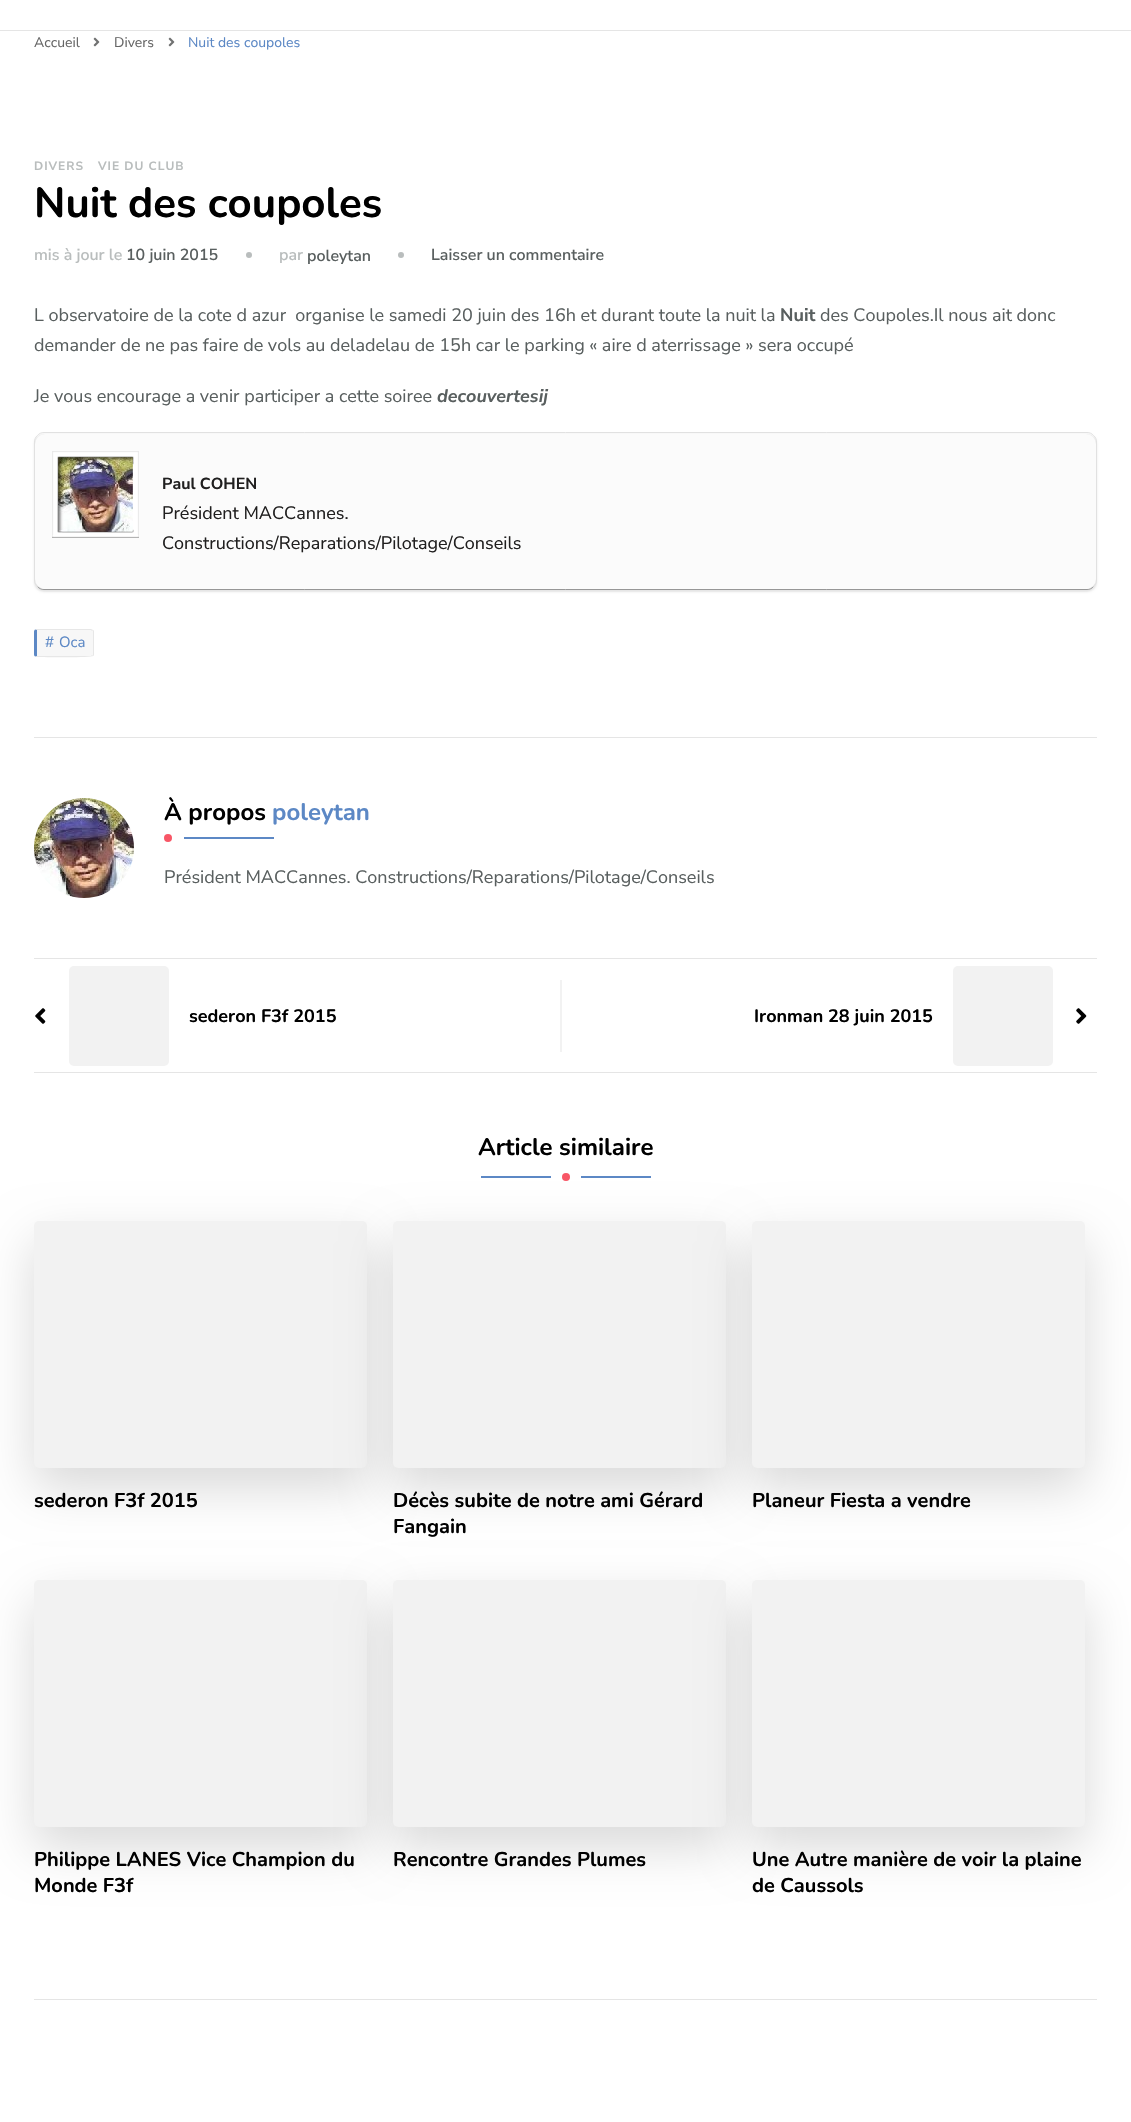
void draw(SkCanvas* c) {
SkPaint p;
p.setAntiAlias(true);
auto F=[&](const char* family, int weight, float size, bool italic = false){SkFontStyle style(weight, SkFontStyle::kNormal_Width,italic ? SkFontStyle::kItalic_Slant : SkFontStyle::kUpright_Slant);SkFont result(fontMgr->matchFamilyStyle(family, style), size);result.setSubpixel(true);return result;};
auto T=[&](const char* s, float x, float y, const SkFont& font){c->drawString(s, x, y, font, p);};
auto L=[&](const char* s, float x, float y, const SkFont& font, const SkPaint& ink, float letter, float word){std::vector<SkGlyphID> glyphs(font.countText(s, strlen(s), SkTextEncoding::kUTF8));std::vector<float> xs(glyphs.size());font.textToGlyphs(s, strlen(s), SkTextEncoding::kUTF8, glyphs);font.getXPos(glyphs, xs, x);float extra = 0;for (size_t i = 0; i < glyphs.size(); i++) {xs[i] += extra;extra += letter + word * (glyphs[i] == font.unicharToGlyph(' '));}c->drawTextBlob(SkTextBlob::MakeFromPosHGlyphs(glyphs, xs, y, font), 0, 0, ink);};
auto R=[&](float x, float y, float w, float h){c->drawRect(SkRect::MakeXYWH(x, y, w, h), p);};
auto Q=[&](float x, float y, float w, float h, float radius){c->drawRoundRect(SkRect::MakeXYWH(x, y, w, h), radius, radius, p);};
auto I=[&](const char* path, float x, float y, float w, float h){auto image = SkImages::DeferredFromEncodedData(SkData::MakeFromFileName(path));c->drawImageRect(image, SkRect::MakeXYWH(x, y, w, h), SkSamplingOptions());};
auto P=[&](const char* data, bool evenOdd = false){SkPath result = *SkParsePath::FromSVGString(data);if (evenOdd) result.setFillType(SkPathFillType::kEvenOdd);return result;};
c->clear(0xffffffff);
p.setColor(0xffe5e5e5);
R(0,30,1131,1);
auto f1 = F("Nunito Sans",400,14);
p.setColor(0xff666666);
T("Accueil",34,47,f1);
I("1.png",93,37,7,10);
T("Divers",114,47,f1);
I("1.png",168,37,7,10);
p.setColor(0xff5c88c5);
T("Nuit des coupoles",188,47,f1);
auto f2 = F("Nunito Sans",700,12);
p.setColor(0xffb9bdbd);
L("DIVERS",34,170,f2,p,1,0);
L("VIE DU CLUB",98,170,f2,p,1,0);
auto f3 = F("Nunito",700,42);
p.setColor(0xff000000);
T("Nuit des coupoles",34,217,f3);
auto f4 = F("Nunito Sans",600,16);
p.setColor(0xffb9bdbd);
T("mis à jour le",34,260,f4);
p.setColor(0xff595f5f);
T("10 juin 2015",126,260,f4);
p.setColor(0xffb9bdbd);
c->drawCircle(249,255,3,p);
T("par",279,260,f4);
p.setColor(0xff595f5f);
T("poleytan",307,261,f4);
p.setColor(0xffb9bdbd);
c->drawCircle(401,255,3,p);
p.setColor(0xff595f5f);
T("Laisser un commentaire",431,260,f4);
auto f5 = F("Nunito Sans",400,18);
T("L observatoire de la cote d azur  organise le samedi 20 juin des 16h et durant toute la nuit la",34,321,f5);
auto f6 = F("Nunito Sans",700,18);
T("Nuit",780,321,f6);
T("des Coupoles.Il nous ait donc",820,321,f5);
T("demander de ne pas faire de vols au deladelau de 15h car le parking « aire d aterrissage » sera occupé",34,351,f5);
T("Je vous encourage a venir participer a cette soiree",34,402,f5);
auto f7 = F("Nunito Sans",700,18,true);
T("decouvertesij",437,402,f7);
p.setColor(0x1a000000);
p.setMaskFilter(SkMaskFilter::MakeBlur(kNormal_SkBlurStyle, 1));
c->drawRoundRect(SkRect::MakeXYWH(34,434,1063,158),10,10,p);
p.setMaskFilter(nullptr);
p.setStroke(true);
p.setStrokeWidth(1);
p.setColor(0xff979797);
c->drawPath(P("M1093.5 586.5c-1.5 2-4 3-6.5 3h-1043c-2.5 0-5-1-6.5-3"),p);
p.setColor(0xffe1e1e1);
c->drawPath(P("M37.5 586.5c-2-1.5-3-4-3-6.5v-138c0-2.5 1-5 3-6.5c1.5-2 4-3 6.5-3h1043c2.5 0 5 1 6.5 3c2 1.5 3 4 3 6.5v138c0 2.5-1 5-3 6.5"),p);
p.setStroke(false);
p.setColor(0xfffbfbfb);
Q(35,434,1061,155,10);
I("2.png",41,588,1049,1);
I("4.png",58,457,75,75);
I("3.png",52,451,87,87);
auto f8 = F("Nunito Sans",700,16);
p.setColor(0xff201f1f);
T("Paul COHEN",162,489,f8);
T("Président MACCannes.",162,519,f5);
T("Constructions/Reparations/Pilotage/Conseils",162,549,f5);
p.setColor(0xfff7f7f7);
c->drawPath(P("M37 630h54c1 0 2 1 2 2v22c0 1-1 2-2 2h-54z"),p);
p.setColor(0xffe7e7e7);
c->drawPath(P("M37 629h-2l2 1h54l1 1l1-1l-2-1z"),p);
c->drawPath(P("M94 654v-22c0-1 0-2-1-2l-.5 .5c.5 .5 .5 1 .5 1.5v22c0 .5 0 1-.5 1.5l.5 .5c1 0 1-1 1-2z"),p);
c->drawPath(P("M37 657c6 0 54 1 56-1l-1-1l-1 1h-54l-2 1z"),p);
p.setColor(0xff5c88c5);
c->drawPath(P("M37 630l-2-.5c-.5 .5-1 1-1 2.5v22c0 1.5 .5 2 1 2.5l2-.5z"),p);
auto f9 = F("Nunito Sans",400,15);
T("#",45,647,f9);
T("Oca",59,647,f9);
p.setColor(0xffe5e5e5);
R(34,737,1063,1);
I("5.png",34,798,100,100);
auto f10 = F("Nunito",700,24);
p.setColor(0xff000000);
T("À propos",164,820,f10);
p.setColor(0xff5c88c5);
T("poleytan",272,820,f10);
p.setColor(0xfff85666);
c->drawCircle(168,838,4,p);
p.setColor(0xff5c88c5);
R(184,837,90,2);
p.setColor(0xff595f5f);
T("Président MACCannes. Constructions/Reparations/Pilotage/Conseils",164,883,f5);
p.setColor(0xffe5e5e5);
R(34,958,1063,1);
R(34,1072,1063,1);
I("6.png",35,1008,11,16);
p.setColor(0xfff2f2f2);
Q(69,966,100,100,5);
auto f11 = F("Nunito",700,18);
p.setColor(0xff000000);
T("sederon F3f 2015",189,1022,f11);
p.setColor(0xfff2f2f2);
R(560,980,2,72);
p.setColor(0xff000000);
T("Ironman 28 juin 2015",754,1022,f11);
p.setColor(0xfff2f2f2);
Q(953,966,100,100,5);
I("7.png",1076,1008,11,16);
p.setColor(0xff000000);
T("Article similaire",478,1155,f10);
p.setColor(0x26000000);
p.setMaskFilter(SkMaskFilter::MakeBlur(kNormal_SkBlurStyle, 25));
c->drawRoundRect(SkRect::MakeXYWH(34,1241,333,247),5,5,p);
p.setMaskFilter(nullptr);
p.setColor(0xfff2f2f2);
Q(34,1221,333,247,5);
p.setColor(0x26000000);
p.setMaskFilter(SkMaskFilter::MakeBlur(kNormal_SkBlurStyle, 25));
c->drawRoundRect(SkRect::MakeXYWH(393,1241,333,247),5,5,p);
p.setMaskFilter(nullptr);
p.setColor(0xff5c88c5);
R(481,1176,70,2);
R(581,1176,70,2);
p.setColor(0xfff85666);
c->drawCircle(566,1177,4,p);
auto f12 = F("Nunito",700,20);
p.setColor(0xff000000);
T("sederon F3f 2015",34,1507,f12);
p.setColor(0xfff2f2f2);
Q(393,1221,333,247,5);
p.setColor(0xff000000);
T("Décès subite de notre ami Gérard",393,1507,f12);
T("Fangain",393,1533,f12);
p.setColor(0x26000000);
p.setMaskFilter(SkMaskFilter::MakeBlur(kNormal_SkBlurStyle, 25));
c->drawRoundRect(SkRect::MakeXYWH(752,1241,333,247),5,5,p);
p.setMaskFilter(nullptr);
p.setColor(0xfff2f2f2);
Q(752,1221,333,247,5);
p.setColor(0xff000000);
T("Planeur Fiesta a vendre",752,1507,f12);
p.setColor(0x26000000);
p.setMaskFilter(SkMaskFilter::MakeBlur(kNormal_SkBlurStyle, 25));
c->drawRoundRect(SkRect::MakeXYWH(34,1600,333,247),5,5,p);
p.setMaskFilter(nullptr);
p.setColor(0xfff2f2f2);
Q(34,1580,333,247,5);
p.setColor(0xff000000);
T("Philippe LANES Vice Champion du",34,1866,f12);
T("Monde F3f",34,1892,f12);
p.setColor(0x26000000);
p.setMaskFilter(SkMaskFilter::MakeBlur(kNormal_SkBlurStyle, 25));
c->drawRoundRect(SkRect::MakeXYWH(393,1600,333,247),5,5,p);
p.setMaskFilter(nullptr);
p.setColor(0xfff2f2f2);
Q(393,1580,333,247,5);
p.setColor(0xff000000);
T("Rencontre Grandes Plumes",393,1866,f12);
p.setColor(0x26000000);
p.setMaskFilter(SkMaskFilter::MakeBlur(kNormal_SkBlurStyle, 25));
c->drawRoundRect(SkRect::MakeXYWH(752,1600,333,247),5,5,p);
p.setMaskFilter(nullptr);
p.setColor(0xfff2f2f2);
Q(752,1580,333,247,5);
p.setColor(0xff000000);
T("Une Autre manière de voir la plaine",752,1866,f12);
T("de Caussols",752,1892,f12);
p.setColor(0xffe5e5e5);
R(34,1999,1063,1);
}
